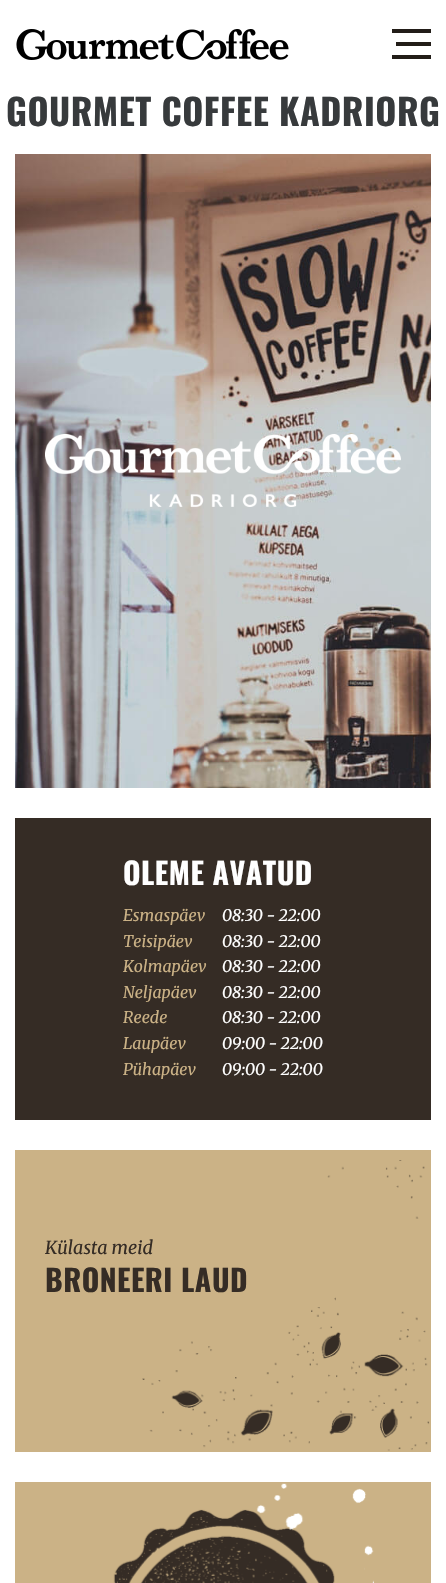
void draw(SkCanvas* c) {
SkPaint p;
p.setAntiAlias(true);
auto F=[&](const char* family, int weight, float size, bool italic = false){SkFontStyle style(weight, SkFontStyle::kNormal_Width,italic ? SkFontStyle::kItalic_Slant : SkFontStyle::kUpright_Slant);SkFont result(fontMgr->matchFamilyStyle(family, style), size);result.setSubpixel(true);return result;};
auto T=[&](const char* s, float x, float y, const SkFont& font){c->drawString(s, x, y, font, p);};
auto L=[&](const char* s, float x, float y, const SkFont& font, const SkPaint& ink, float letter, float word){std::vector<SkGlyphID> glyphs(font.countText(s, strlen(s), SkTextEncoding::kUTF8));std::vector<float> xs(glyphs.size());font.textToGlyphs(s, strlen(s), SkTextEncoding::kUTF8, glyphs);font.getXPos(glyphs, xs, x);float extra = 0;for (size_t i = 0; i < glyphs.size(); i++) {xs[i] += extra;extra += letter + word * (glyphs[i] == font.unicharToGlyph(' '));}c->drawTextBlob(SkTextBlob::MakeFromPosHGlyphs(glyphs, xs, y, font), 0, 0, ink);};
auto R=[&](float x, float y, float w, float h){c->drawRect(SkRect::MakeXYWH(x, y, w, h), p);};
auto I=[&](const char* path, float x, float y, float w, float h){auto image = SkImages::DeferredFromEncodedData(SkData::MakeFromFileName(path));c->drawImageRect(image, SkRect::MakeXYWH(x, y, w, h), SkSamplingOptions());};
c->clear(0xffffffff);
I("1.png",16,29,273,31);
p.setColor(0xff221d18);
R(396,42,35,4);
R(392,29,39,4);
R(392,55,39,4);
auto f1 = F("Oswald",700,36);
p.setColor(0xff373a3c);
L("GOURMET COFFEE KADRIORG",6,126,f1,p,.5,0);
I("2.png",15,154,416,634);
I("3.png",45,434,356,73);
p.setColor(0xff352c25);
R(15,818,416,302);
auto f2 = F("Oswald",700,30);
p.setColor(0xffffffff);
L("OLEME AVATUD",123,885,f2,p,.5,0);
auto f3 = F("Merriweather",400,16,true);
p.setColor(0xffcbb286);
T("Esmaspäev",123,921,f3);
p.setColor(0xffffffff);
T("08:30 - 22:00",222,921,f3);
p.setColor(0xffcbb286);
T("Teisipäev",123,947,f3);
p.setColor(0xffffffff);
T("08:30 - 22:00",222,947,f3);
p.setColor(0xffcbb286);
T("Kolmapäev",123,972,f3);
p.setColor(0xffffffff);
T("08:30 - 22:00",222,972,f3);
p.setColor(0xffcbb286);
T("Neljapäev",123,998,f3);
p.setColor(0xffffffff);
T("08:30 - 22:00",222,998,f3);
p.setColor(0xffcbb286);
T("Reede",123,1023,f3);
p.setColor(0xffffffff);
T("08:30 - 22:00",222,1023,f3);
p.setColor(0xffcbb286);
T("Laupäev",123,1049,f3);
p.setColor(0xffffffff);
T("09:00 - 22:00",222,1049,f3);
p.setColor(0xffcbb286);
T("Pühapäev",123,1075,f3);
p.setColor(0xffffffff);
T("09:00 - 22:00",222,1075,f3);
p.setColor(0xffcbb286);
R(15,1150,416,302);
I("4.png",142,1160,288,291);
auto f4 = F("Merriweather",400,18,true);
p.setColor(0xff352c25);
T("Külasta meid",45,1254,f4);
L("BRONEERI LAUD",45,1292,f2,p,.5,0);
p.setColor(0xffcbb286);
R(15,1482,416,101);
I("5.png",113,1483,261,100);
}
